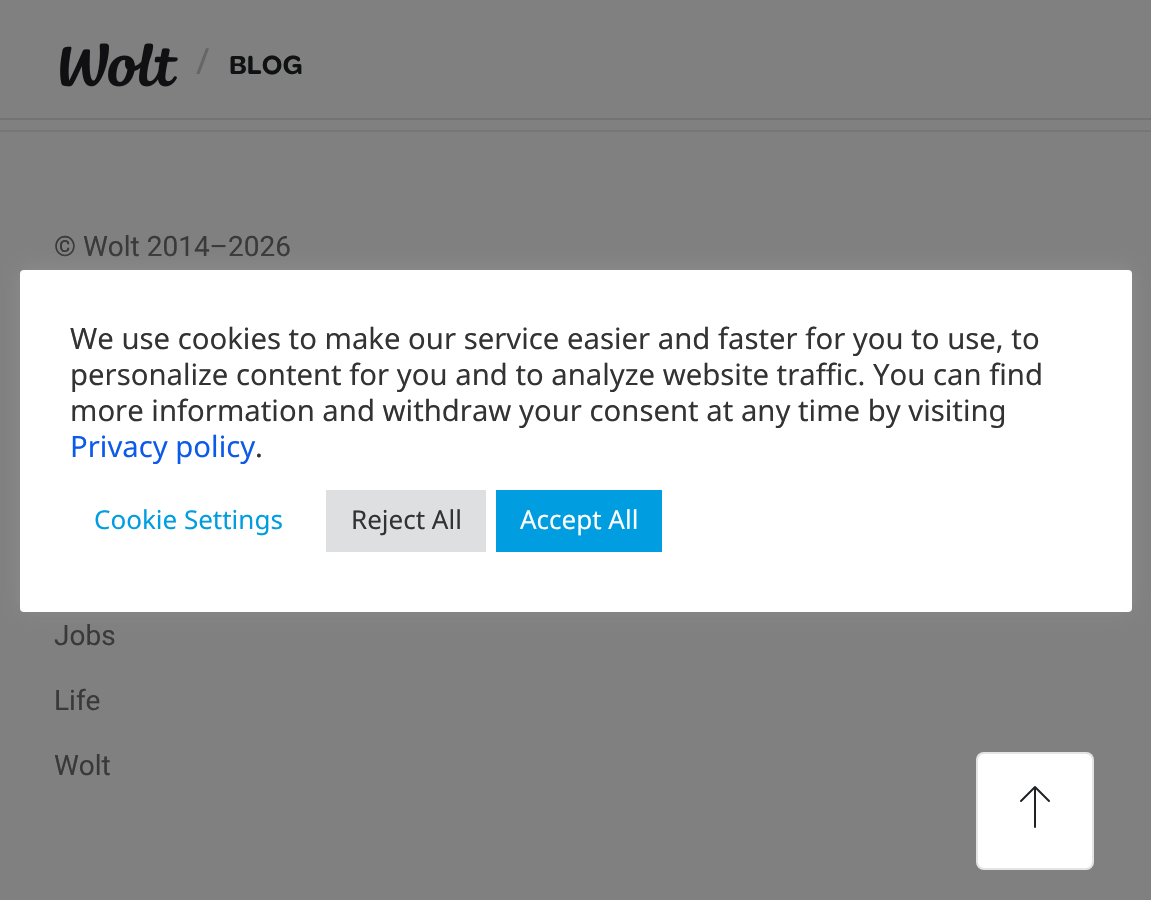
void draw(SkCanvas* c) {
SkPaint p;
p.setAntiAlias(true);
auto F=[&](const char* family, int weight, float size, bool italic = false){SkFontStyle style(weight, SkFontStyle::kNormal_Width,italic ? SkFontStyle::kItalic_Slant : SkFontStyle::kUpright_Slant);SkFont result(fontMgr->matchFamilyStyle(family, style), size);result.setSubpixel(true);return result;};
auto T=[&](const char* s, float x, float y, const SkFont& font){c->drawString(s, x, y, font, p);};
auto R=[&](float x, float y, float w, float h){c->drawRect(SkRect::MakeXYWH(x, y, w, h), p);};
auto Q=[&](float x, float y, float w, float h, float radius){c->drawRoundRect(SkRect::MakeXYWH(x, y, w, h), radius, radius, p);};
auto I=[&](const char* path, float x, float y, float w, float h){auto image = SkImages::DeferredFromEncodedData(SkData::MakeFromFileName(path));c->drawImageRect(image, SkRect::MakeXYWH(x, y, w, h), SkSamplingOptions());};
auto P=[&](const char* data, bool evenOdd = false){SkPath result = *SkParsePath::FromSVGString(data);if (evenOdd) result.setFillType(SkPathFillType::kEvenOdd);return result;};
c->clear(0xff808080);
p.setColor(0xff737373);
R(0,118,1151,2);
I("1.png",60,43,118,44);
auto f1 = F("Noto Sans",400,36);
p.setColor(0xff666666);
T("/",196,74,f1);
auto f2 = F("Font",600,28);
p.setColor(0xff101113);
T("BLOG",229,74,f2);
p.setColor(0xff767676);
R(0,130,1151,2);
auto f3 = F("Roboto",400,28);
p.setColor(0xff393939);
T("© Wolt 2014–2026",54,256,f3);
T("Jobs",54,645,f3);
T("Life",54,710,f3);
T("Wolt",54,775,f3);
p.setColor(0x4dacabab);
p.setMaskFilter(SkMaskFilter::MakeBlur(kNormal_SkBlurStyle, 10));
c->drawRoundRect(SkRect::MakeXYWH(20,268,1112,342),4,4,p);
p.setMaskFilter(nullptr);
p.setColor(0xffffffff);
Q(20,270,1112,342,4);
auto f4 = F("Noto Sans",400,29.3);
p.setColor(0xff333333);
T("We use cookies to make our service easier and faster for you to use, to",70,349,f4);
T("personalize content for you and to analyze website traffic. You can find",70,385,f4);
T("more information and withdraw your consent at any time by visiting",70,421,f4);
p.setColor(0xff0c5be8);
T("Privacy policy",70,457,f4);
p.setColor(0xff333333);
T(".",255,457,f4);
auto f5 = F("Noto Sans",400,26);
p.setColor(0xff009de0);
T("Cookie Settings",94,529,f5);
p.setColor(0xffdedfe0);
R(326,490,160,62);
p.setColor(0xff333333);
T("Reject All",351,529,f5);
p.setColor(0xff009de0);
R(496,490,166,62);
p.setColor(0xffffffff);
T("Accept All",520,529,f5);
Q(976,752,118,118,8);
p.setStroke(true);
p.setStrokeWidth(2);
p.setColor(0x1f202125);
c->drawRoundRect(SkRect::MakeXYWH(977,753,116,116),7,7,p);
p.setStrokeCap(SkPaint::kRound_Cap);
p.setStrokeJoin(SkPaint::kRound_Join);
p.setColor(0xff202125);
c->drawPath(P("M1035 827v-40m-14 14l14-14l14 14"),p);
}
